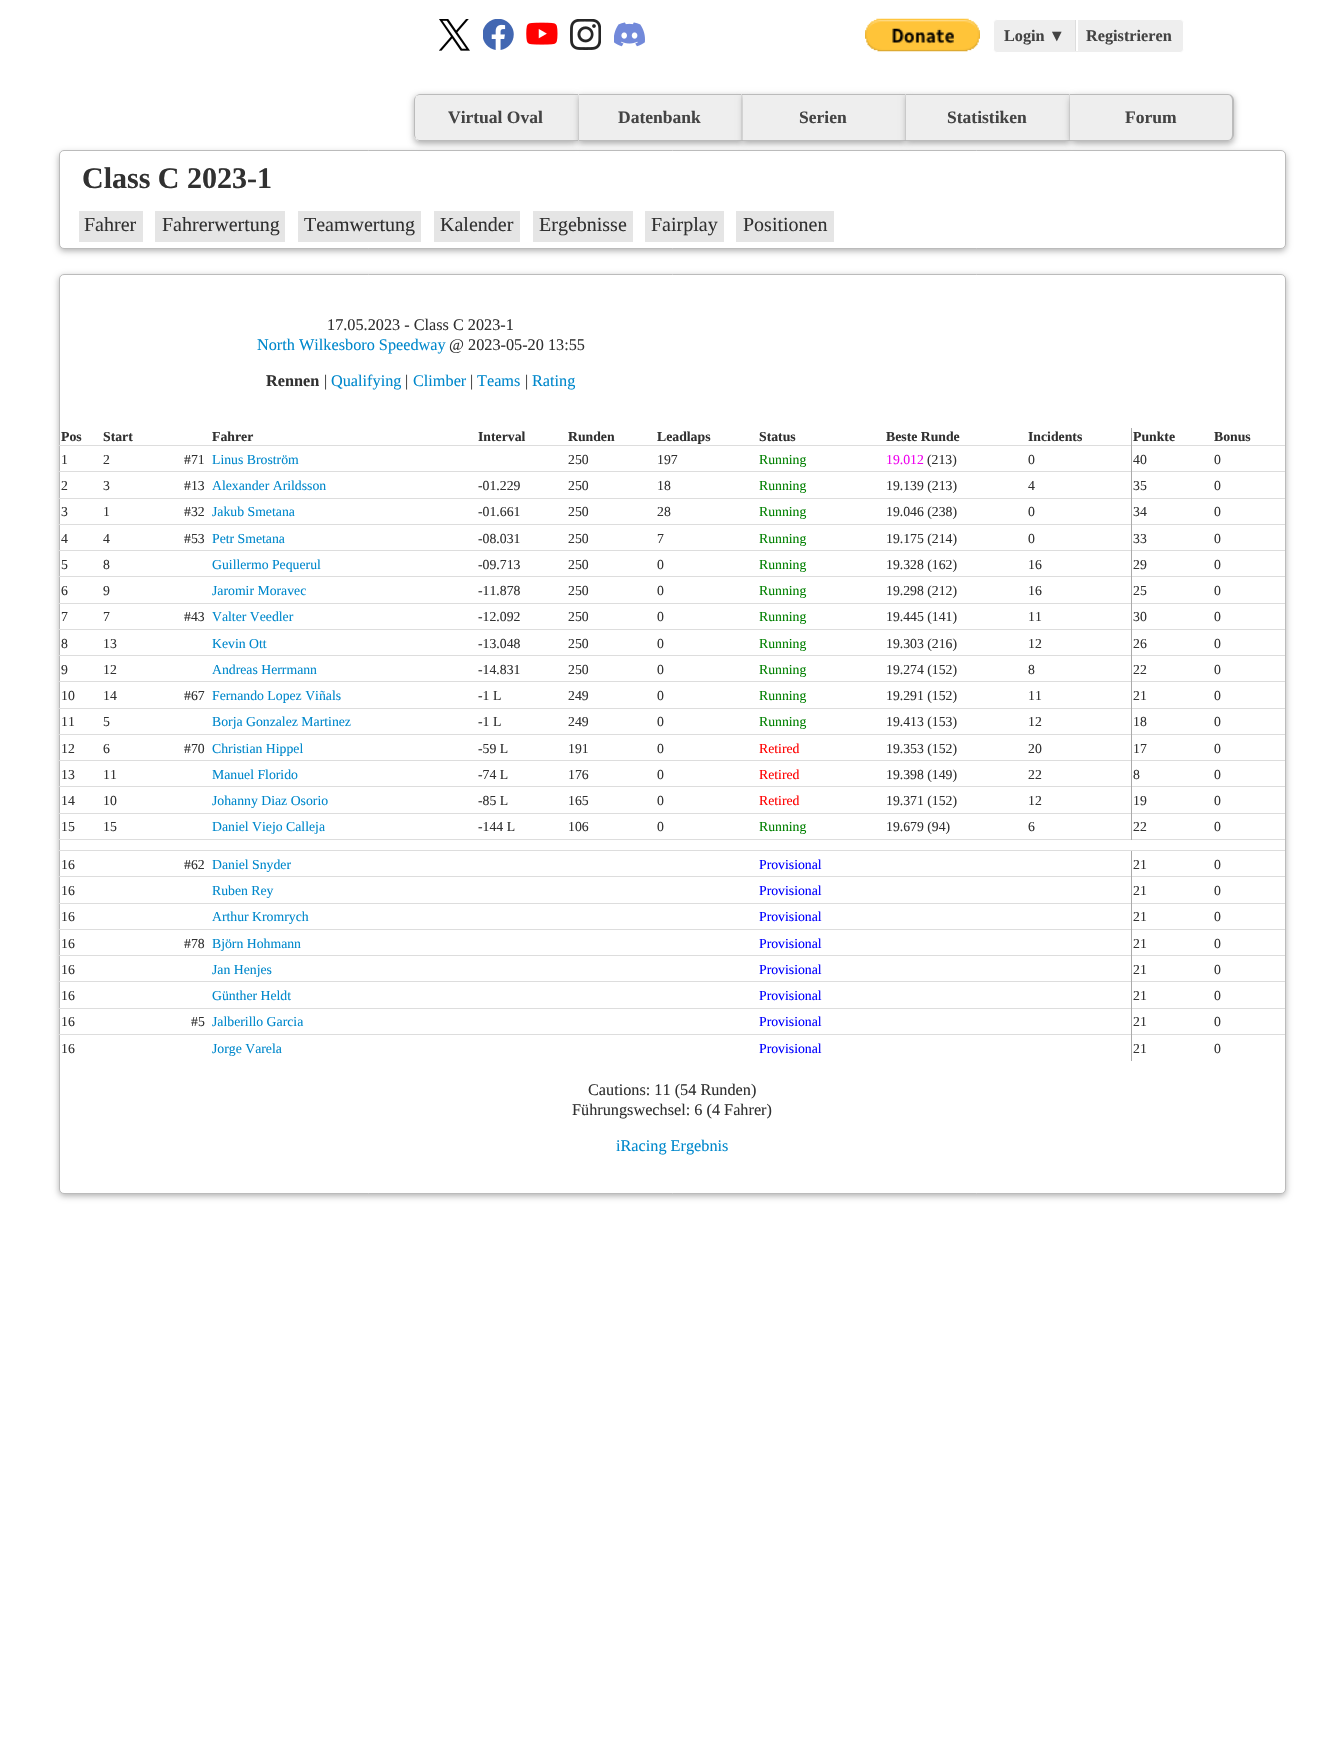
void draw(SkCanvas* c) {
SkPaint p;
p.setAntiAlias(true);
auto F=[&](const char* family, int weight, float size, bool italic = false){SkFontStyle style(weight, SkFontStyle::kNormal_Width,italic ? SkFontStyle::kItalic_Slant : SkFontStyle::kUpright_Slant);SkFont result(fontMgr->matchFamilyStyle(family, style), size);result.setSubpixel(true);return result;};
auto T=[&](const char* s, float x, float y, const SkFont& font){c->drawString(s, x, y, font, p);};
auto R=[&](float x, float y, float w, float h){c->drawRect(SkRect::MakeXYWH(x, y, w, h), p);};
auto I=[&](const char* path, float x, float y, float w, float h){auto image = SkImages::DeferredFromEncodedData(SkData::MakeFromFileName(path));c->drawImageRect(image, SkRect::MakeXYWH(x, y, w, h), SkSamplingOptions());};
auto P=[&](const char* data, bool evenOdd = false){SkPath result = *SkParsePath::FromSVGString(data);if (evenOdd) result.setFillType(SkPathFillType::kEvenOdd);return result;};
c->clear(0xffffffff);
I("1.png",439,19,31,32);
I("2.png",483,19,31,31);
I("3.png",526,22,32,23);
I("4.png",570,19,31,31);
I("5.png",614,22,31,25);
I("6.png",865,18,115,34);
p.setColor(0xffeeeeee);
c->drawRoundRect(SkRect::MakeXYWH(993.5,19.5,190,33),3.5,3.5,p);
p.setStroke(true);
p.setStrokeWidth(1);
p.setColor(0xffffffff);
c->drawRoundRect(SkRect::MakeXYWH(993.5,19.5,190,33),3.5,3.5,p);
p.setStroke(false);
R(1076,20,2,31);
p.setColor(0xffdddddd);
R(1075,20,1,31);
auto f1 = F("Liberation Serif",700,16.25);
p.setColor(0xff444444);
T("Login ▼",1004,41,f1);
T("Registrieren",1086,41,f1);
p.setColor(0xffb0b0b0);
p.setMaskFilter(SkMaskFilter::MakeBlur(kNormal_SkBlurStyle, 3));
c->drawRoundRect(SkRect::MakeXYWH(59,153,1227,98),5,5,p);
p.setMaskFilter(nullptr);
p.setColor(0xffffffff);
c->drawRoundRect(SkRect::MakeXYWH(59.5,150.5,1226,98),4.5,4.5,p);
p.setStroke(true);
p.setColor(0xffbbbbbb);
c->drawRoundRect(SkRect::MakeXYWH(59.5,150.5,1226,98),4.5,4.5,p);
p.setStroke(false);
p.setColor(0xffb0b0b0);
p.setMaskFilter(SkMaskFilter::MakeBlur(kNormal_SkBlurStyle, 3));
c->drawRoundRect(SkRect::MakeXYWH(414,96,165,48),6,6,p);
p.setMaskFilter(nullptr);
p.setColor(0xffeeeeee);
c->drawPath(P("M420 94h159v47h-159c-3.5 0-6-2.5-6-6v-35c0-3.5 2.5-6 6-6z"),p);
p.setColor(0xffbbbbbb);
c->drawPath(P("M420 94c-2 0-3 1-4 2l3-1h159v-1z"),p);
p.setColor(0xffdddddd);
c->drawPath(P("M579 141l-1-1v-45v-1z"),p);
p.setColor(0xffbbbbbb);
c->drawPath(P("M578 141h-159l-3-2l3 1h159z"),p);
c->drawPath(P("M416 96c-1 1-2 2-2 4v35c0 1 1 3 2 4c0-1-1-3-1-4v-35c0-2 1-3 1-4z"),p);
auto f2 = F("Liberation Serif",700,17.5);
p.setColor(0xff444444);
T("Virtual Oval",448,123,f2);
p.setColor(0xffb0b0b0);
p.setMaskFilter(SkMaskFilter::MakeBlur(kNormal_SkBlurStyle, 3));
c->drawRect(SkRect::MakeXYWH(579,96,164,48),p);
p.setMaskFilter(nullptr);
p.setColor(0xffeeeeee);
R(579,95,164,45);
p.setColor(0xffbbbbbb);
R(579,94,164,1);
p.setColor(0xffdddddd);
R(741,94,1,47);
p.setColor(0xffbbbbbb);
R(579,140,164,1);
p.setColor(0xff444444);
T("Datenbank",618,123,f2);
p.setColor(0xffb0b0b0);
p.setMaskFilter(SkMaskFilter::MakeBlur(kNormal_SkBlurStyle, 3));
c->drawRect(SkRect::MakeXYWH(743,96,163,48),p);
p.setMaskFilter(nullptr);
p.setColor(0xffeeeeee);
R(743,95,162,45);
p.setColor(0xffbbbbbb);
R(743,94,163,1);
p.setColor(0xffdddddd);
R(905,94,1,47);
p.setColor(0xffbbbbbb);
R(743,140,163,1);
p.setColor(0xff444444);
T("Serien",799,123,f2);
p.setColor(0xffb0b0b0);
p.setMaskFilter(SkMaskFilter::MakeBlur(kNormal_SkBlurStyle, 3));
c->drawRect(SkRect::MakeXYWH(906,96,164,48),p);
p.setMaskFilter(nullptr);
p.setColor(0xffeeeeee);
R(906,95,163,45);
p.setColor(0xffbbbbbb);
R(906,94,164,1);
p.setColor(0xffdddddd);
R(1069,94,1,47);
p.setColor(0xffbbbbbb);
R(906,140,164,1);
p.setColor(0xff444444);
T("Statistiken",947,123,f2);
p.setColor(0xffb0b0b0);
p.setMaskFilter(SkMaskFilter::MakeBlur(kNormal_SkBlurStyle, 3));
c->drawRoundRect(SkRect::MakeXYWH(1070,96,164,48),6,6,p);
p.setMaskFilter(nullptr);
p.setColor(0xffeeeeee);
c->drawPath(P("M1070 94h158c3.5 0 6 2.5 6 6v35c0 3.5-2.5 6-6 6h-158z"),p);
p.setColor(0xffbbbbbb);
c->drawPath(P("M1070 94h158c3 0 6 3 6 6v35c0 3-3 6-6 6h-158zm0 1h158c2 0 4 2 4 5v35c0 3-2 5-4 5h-158z",true),p);
p.setColor(0xff444444);
T("Forum",1125,123,f2);
auto f3 = F("Liberation Serif",700,30);
p.setColor(0xff313131);
T("Class C 2023-1",82,188,f3);
p.setColor(0xffe5e5e5);
R(79,211,64,31);
auto f4 = F("Liberation Serif",400,20);
p.setColor(0xff313131);
T("Fahrer",84,231,f4);
p.setColor(0xffe5e5e5);
R(155,211,130,31);
p.setColor(0xff313131);
T("Fahrerwertung",162,231,f4);
p.setColor(0xffe5e5e5);
R(298,211,123,31);
p.setColor(0xff313131);
T("Teamwertung",304,231,f4);
p.setColor(0xffe5e5e5);
R(434,211,86,31);
p.setColor(0xff313131);
T("Kalender",440,231,f4);
p.setColor(0xffe5e5e5);
R(533,211,100,31);
p.setColor(0xff313131);
T("Ergebnisse",539,231,f4);
p.setColor(0xffe5e5e5);
R(645,211,79,31);
p.setColor(0xff313131);
T("Fairplay",651,231,f4);
p.setColor(0xffe5e5e5);
R(736,211,98,31);
p.setColor(0xff313131);
T("Positionen",743,231,f4);
p.setColor(0xffb0b0b0);
p.setMaskFilter(SkMaskFilter::MakeBlur(kNormal_SkBlurStyle, 3));
c->drawRoundRect(SkRect::MakeXYWH(59,276,1227,920),5,5,p);
p.setMaskFilter(nullptr);
p.setColor(0xffffffff);
c->drawRoundRect(SkRect::MakeXYWH(59.5,274.5,1226,919),4.5,4.5,p);
p.setStroke(true);
p.setColor(0xffbbbbbb);
c->drawRoundRect(SkRect::MakeXYWH(59.5,274.5,1226,919),4.5,4.5,p);
auto f5 = F("Liberation Serif",400,16.25);
p.setStroke(false);
p.setColor(0xff313131);
T("17.05.2023 - Class C 2023-1",327,330,f5);
p.setColor(0xff0088cc);
T("North Wilkesboro Speedway",257,350,f5);
p.setColor(0xff313131);
T("@ 2023-05-20 13:55",449,350,f5);
T("Rennen",266,386,f1);
T("|",324,386,f5);
p.setColor(0xff0088cc);
T("Qualifying",331,386,f5);
p.setColor(0xff313131);
T("|",405,386,f5);
p.setColor(0xff0088cc);
T("Climber",413,386,f5);
p.setColor(0xff313131);
T("|",470,386,f5);
p.setColor(0xff0088cc);
T("Teams",477,386,f5);
p.setColor(0xff313131);
T("|",525,386,f5);
p.setColor(0xff0088cc);
T("Rating",532,386,f5);
auto f6 = F("Liberation Serif",700,13.75);
p.setColor(0xff313131);
T("Pos",61,441,f6);
T("Start",103,441,f6);
T("Fahrer",212,441,f6);
T("Interval",478,441,f6);
T("Runden",568,441,f6);
T("Leadlaps",657,441,f6);
T("Status",759,441,f6);
T("Beste Runde",886,441,f6);
T("Incidents",1028,441,f6);
p.setColor(0xffdddddd);
R(1131,445,154,1);
R(1131,471,154,1);
R(1131,498,154,1);
R(1131,524,154,1);
R(1131,550,154,1);
R(1131,576,154,1);
R(1131,603,154,1);
R(1131,629,154,1);
R(1131,655,154,1);
R(1131,681,154,1);
R(1131,708,154,1);
R(1131,734,154,1);
R(1131,760,154,1);
R(1131,786,154,1);
R(1131,813,154,1);
R(59,839,1226,1);
p.setColor(0xffaaaaaa);
R(1131,813,1,27);
p.setColor(0xffdddddd);
R(59,813,1074,1);
p.setColor(0xffaaaaaa);
R(1131,786,1,28);
p.setColor(0xffdddddd);
R(59,786,1074,1);
p.setColor(0xffaaaaaa);
R(1131,760,1,28);
p.setColor(0xffdddddd);
R(59,760,1074,1);
p.setColor(0xffaaaaaa);
R(1131,734,1,27);
p.setColor(0xffdddddd);
R(59,734,1074,1);
p.setColor(0xffaaaaaa);
R(1131,708,1,27);
p.setColor(0xffdddddd);
R(59,708,1074,1);
p.setColor(0xffaaaaaa);
R(1131,681,1,28);
p.setColor(0xffdddddd);
R(59,681,1074,1);
p.setColor(0xffaaaaaa);
R(1131,655,1,28);
p.setColor(0xffdddddd);
R(59,655,1074,1);
p.setColor(0xffaaaaaa);
R(1131,629,1,27);
p.setColor(0xffdddddd);
R(59,629,1074,1);
p.setColor(0xffaaaaaa);
R(1131,603,1,27);
p.setColor(0xffdddddd);
R(59,603,1074,1);
p.setColor(0xffaaaaaa);
R(1131,576,1,28);
p.setColor(0xffdddddd);
R(59,576,1074,1);
p.setColor(0xffaaaaaa);
R(1131,550,1,28);
p.setColor(0xffdddddd);
R(59,550,1074,1);
p.setColor(0xffaaaaaa);
R(1131,524,1,27);
p.setColor(0xffdddddd);
R(59,524,1074,1);
p.setColor(0xffaaaaaa);
R(1131,498,1,27);
p.setColor(0xffdddddd);
R(59,498,1074,1);
p.setColor(0xffaaaaaa);
R(1131,471,1,28);
p.setColor(0xffdddddd);
R(59,471,1074,1);
p.setColor(0xffaaaaaa);
R(1131,445,1,28);
p.setColor(0xffdddddd);
R(59,445,1074,1);
p.setColor(0xffaaaaaa);
R(1131,428,1,18);
p.setColor(0xff313131);
T("Punkte",1133,441,f6);
T("Bonus",1214,441,f6);
auto f7 = F("Liberation Serif",400,13.75);
T("1",61,464,f7);
T("2",103,464,f7);
T("#71",184,464,f7);
p.setColor(0xff0088cc);
T("Linus Broström",212,464,f7);
p.setColor(0xff313131);
T("250",568,464,f7);
T("197",657,464,f7);
p.setColor(0xff008000);
T("Running",759,464,f7);
p.setColor(0xffef00ee);
T("19.012",886,464,f7);
p.setColor(0xff313131);
T("(213)",927,464,f7);
T("0",1028,464,f7);
T("40",1133,464,f7);
T("0",1214,464,f7);
T("2",61,490,f7);
T("3",103,490,f7);
T("#13",184,490,f7);
p.setColor(0xff0088cc);
T("Alexander Arildsson",212,490,f7);
p.setColor(0xff313131);
T("-01.229",478,490,f7);
T("250",568,490,f7);
T("18",657,490,f7);
p.setColor(0xff008000);
T("Running",759,490,f7);
p.setColor(0xff313131);
T("19.139 (213)",886,490,f7);
T("4",1028,490,f7);
T("35",1133,490,f7);
T("0",1214,490,f7);
T("3",61,516,f7);
T("1",103,516,f7);
T("#32",184,516,f7);
p.setColor(0xff0088cc);
T("Jakub Smetana",212,516,f7);
p.setColor(0xff313131);
T("-01.661",478,516,f7);
T("250",568,516,f7);
T("28",657,516,f7);
p.setColor(0xff008000);
T("Running",759,516,f7);
p.setColor(0xff313131);
T("19.046 (238)",886,516,f7);
T("0",1028,516,f7);
T("34",1133,516,f7);
T("0",1214,516,f7);
T("4",61,543,f7);
T("4",103,543,f7);
T("#53",184,543,f7);
p.setColor(0xff0088cc);
T("Petr Smetana",212,543,f7);
p.setColor(0xff313131);
T("-08.031",478,543,f7);
T("250",568,543,f7);
T("7",657,543,f7);
p.setColor(0xff008000);
T("Running",759,543,f7);
p.setColor(0xff313131);
T("19.175 (214)",886,543,f7);
T("0",1028,543,f7);
T("33",1133,543,f7);
T("0",1214,543,f7);
T("5",61,569,f7);
T("8",103,569,f7);
p.setColor(0xff0088cc);
T("Guillermo Pequerul",212,569,f7);
p.setColor(0xff313131);
T("-09.713",478,569,f7);
T("250",568,569,f7);
T("0",657,569,f7);
p.setColor(0xff008000);
T("Running",759,569,f7);
p.setColor(0xff313131);
T("19.328 (162)",886,569,f7);
T("16",1028,569,f7);
T("29",1133,569,f7);
T("0",1214,569,f7);
T("6",61,595,f7);
T("9",103,595,f7);
p.setColor(0xff0088cc);
T("Jaromir Moravec",212,595,f7);
p.setColor(0xff313131);
T("-11.878",478,595,f7);
T("250",568,595,f7);
T("0",657,595,f7);
p.setColor(0xff008000);
T("Running",759,595,f7);
p.setColor(0xff313131);
T("19.298 (212)",886,595,f7);
T("16",1028,595,f7);
T("25",1133,595,f7);
T("0",1214,595,f7);
T("7",61,621,f7);
T("7",103,621,f7);
T("#43",184,621,f7);
p.setColor(0xff0088cc);
T("Valter Veedler",212,621,f7);
p.setColor(0xff313131);
T("-12.092",478,621,f7);
T("250",568,621,f7);
T("0",657,621,f7);
p.setColor(0xff008000);
T("Running",759,621,f7);
p.setColor(0xff313131);
T("19.445 (141)",886,621,f7);
T("11",1028,621,f7);
T("30",1133,621,f7);
T("0",1214,621,f7);
T("8",61,648,f7);
T("13",103,648,f7);
p.setColor(0xff0088cc);
T("Kevin Ott",212,648,f7);
p.setColor(0xff313131);
T("-13.048",478,648,f7);
T("250",568,648,f7);
T("0",657,648,f7);
p.setColor(0xff008000);
T("Running",759,648,f7);
p.setColor(0xff313131);
T("19.303 (216)",886,648,f7);
T("12",1028,648,f7);
T("26",1133,648,f7);
T("0",1214,648,f7);
T("9",61,674,f7);
T("12",103,674,f7);
p.setColor(0xff0088cc);
T("Andreas Herrmann",212,674,f7);
p.setColor(0xff313131);
T("-14.831",478,674,f7);
T("250",568,674,f7);
T("0",657,674,f7);
p.setColor(0xff008000);
T("Running",759,674,f7);
p.setColor(0xff313131);
T("19.274 (152)",886,674,f7);
T("8",1028,674,f7);
T("22",1133,674,f7);
T("0",1214,674,f7);
T("10",61,700,f7);
T("14",103,700,f7);
T("#67",184,700,f7);
p.setColor(0xff0088cc);
T("Fernando Lopez Viñals",212,700,f7);
p.setColor(0xff313131);
T("-1 L",478,700,f7);
T("249",568,700,f7);
T("0",657,700,f7);
p.setColor(0xff008000);
T("Running",759,700,f7);
p.setColor(0xff313131);
T("19.291 (152)",886,700,f7);
T("11",1028,700,f7);
T("21",1133,700,f7);
T("0",1214,700,f7);
T("11",61,726,f7);
T("5",103,726,f7);
p.setColor(0xff0088cc);
T("Borja Gonzalez Martinez",212,726,f7);
p.setColor(0xff313131);
T("-1 L",478,726,f7);
T("249",568,726,f7);
T("0",657,726,f7);
p.setColor(0xff008000);
T("Running",759,726,f7);
p.setColor(0xff313131);
T("19.413 (153)",886,726,f7);
T("12",1028,726,f7);
T("18",1133,726,f7);
T("0",1214,726,f7);
T("12",61,753,f7);
T("6",103,753,f7);
T("#70",184,753,f7);
p.setColor(0xff0088cc);
T("Christian Hippel",212,753,f7);
p.setColor(0xff313131);
T("-59 L",478,753,f7);
T("191",568,753,f7);
T("0",657,753,f7);
p.setColor(0xffff0000);
T("Retired",759,753,f7);
p.setColor(0xff313131);
T("19.353 (152)",886,753,f7);
T("20",1028,753,f7);
T("17",1133,753,f7);
T("0",1214,753,f7);
T("13",61,779,f7);
T("11",103,779,f7);
p.setColor(0xff0088cc);
T("Manuel Florido",212,779,f7);
p.setColor(0xff313131);
T("-74 L",478,779,f7);
T("176",568,779,f7);
T("0",657,779,f7);
p.setColor(0xffff0000);
T("Retired",759,779,f7);
p.setColor(0xff313131);
T("19.398 (149)",886,779,f7);
T("22",1028,779,f7);
T("8",1133,779,f7);
T("0",1214,779,f7);
T("14",61,805,f7);
T("10",103,805,f7);
p.setColor(0xff0088cc);
T("Johanny Diaz Osorio",212,805,f7);
p.setColor(0xff313131);
T("-85 L",478,805,f7);
T("165",568,805,f7);
T("0",657,805,f7);
p.setColor(0xffff0000);
T("Retired",759,805,f7);
p.setColor(0xff313131);
T("19.371 (152)",886,805,f7);
T("12",1028,805,f7);
T("19",1133,805,f7);
T("0",1214,805,f7);
T("15",61,831,f7);
T("15",103,831,f7);
p.setColor(0xff0088cc);
T("Daniel Viejo Calleja",212,831,f7);
p.setColor(0xff313131);
T("-144 L",478,831,f7);
T("106",568,831,f7);
T("0",657,831,f7);
p.setColor(0xff008000);
T("Running",759,831,f7);
p.setColor(0xff313131);
T("19.679 (94)",886,831,f7);
T("6",1028,831,f7);
T("22",1133,831,f7);
T("0",1214,831,f7);
p.setColor(0xffdddddd);
R(1131,850,154,1);
R(1131,876,154,1);
R(1131,903,154,1);
R(1131,929,154,1);
R(1131,955,154,1);
R(1131,981,154,1);
R(1131,1008,154,1);
R(1131,1034,154,1);
p.setColor(0xffaaaaaa);
R(1131,1034,1,27);
p.setColor(0xffdddddd);
R(59,1034,1074,1);
p.setColor(0xffaaaaaa);
R(1131,1008,1,27);
p.setColor(0xffdddddd);
R(59,1008,1074,1);
p.setColor(0xffaaaaaa);
R(1131,981,1,28);
p.setColor(0xffdddddd);
R(59,981,1074,1);
p.setColor(0xffaaaaaa);
R(1131,955,1,28);
p.setColor(0xffdddddd);
R(59,955,1074,1);
p.setColor(0xffaaaaaa);
R(1131,929,1,27);
p.setColor(0xffdddddd);
R(59,929,1074,1);
p.setColor(0xffaaaaaa);
R(1131,903,1,27);
p.setColor(0xffdddddd);
R(59,903,1074,1);
p.setColor(0xffaaaaaa);
R(1131,876,1,28);
p.setColor(0xffdddddd);
R(59,876,1074,1);
p.setColor(0xffaaaaaa);
R(1131,850,1,28);
p.setColor(0xffdddddd);
R(59,850,1074,1);
p.setColor(0xff313131);
T("16",61,869,f7);
T("#62",184,869,f7);
p.setColor(0xff0088cc);
T("Daniel Snyder",212,869,f7);
p.setColor(0xff0000ff);
T("Provisional",759,869,f7);
p.setColor(0xff313131);
T("21",1133,869,f7);
T("0",1214,869,f7);
T("16",61,895,f7);
p.setColor(0xff0088cc);
T("Ruben Rey",212,895,f7);
p.setColor(0xff0000ff);
T("Provisional",759,895,f7);
p.setColor(0xff313131);
T("21",1133,895,f7);
T("0",1214,895,f7);
T("16",61,921,f7);
p.setColor(0xff0088cc);
T("Arthur Kromrych",212,921,f7);
p.setColor(0xff0000ff);
T("Provisional",759,921,f7);
p.setColor(0xff313131);
T("21",1133,921,f7);
T("0",1214,921,f7);
T("16",61,948,f7);
T("#78",184,948,f7);
p.setColor(0xff0088cc);
T("Björn Hohmann",212,948,f7);
p.setColor(0xff0000ff);
T("Provisional",759,948,f7);
p.setColor(0xff313131);
T("21",1133,948,f7);
T("0",1214,948,f7);
T("16",61,974,f7);
p.setColor(0xff0088cc);
T("Jan Henjes",212,974,f7);
p.setColor(0xff0000ff);
T("Provisional",759,974,f7);
p.setColor(0xff313131);
T("21",1133,974,f7);
T("0",1214,974,f7);
T("16",61,1000,f7);
p.setColor(0xff0088cc);
T("Günther Heldt",212,1000,f7);
p.setColor(0xff0000ff);
T("Provisional",759,1000,f7);
p.setColor(0xff313131);
T("21",1133,1000,f7);
T("0",1214,1000,f7);
T("16",61,1026,f7);
T("#5",191,1026,f7);
p.setColor(0xff0088cc);
T("Jalberillo Garcia",212,1026,f7);
p.setColor(0xff0000ff);
T("Provisional",759,1026,f7);
p.setColor(0xff313131);
T("21",1133,1026,f7);
T("0",1214,1026,f7);
T("16",61,1053,f7);
p.setColor(0xff0088cc);
T("Jorge Varela",212,1053,f7);
p.setColor(0xff0000ff);
T("Provisional",759,1053,f7);
p.setColor(0xff313131);
T("21",1133,1053,f7);
T("0",1214,1053,f7);
T("Cautions: 11 (54 Runden)",588,1095,f5);
T("Führungswechsel: 6 (4 Fahrer)",572,1115,f5);
p.setColor(0xff0088cc);
T("iRacing Ergebnis",616,1151,f5);
}
